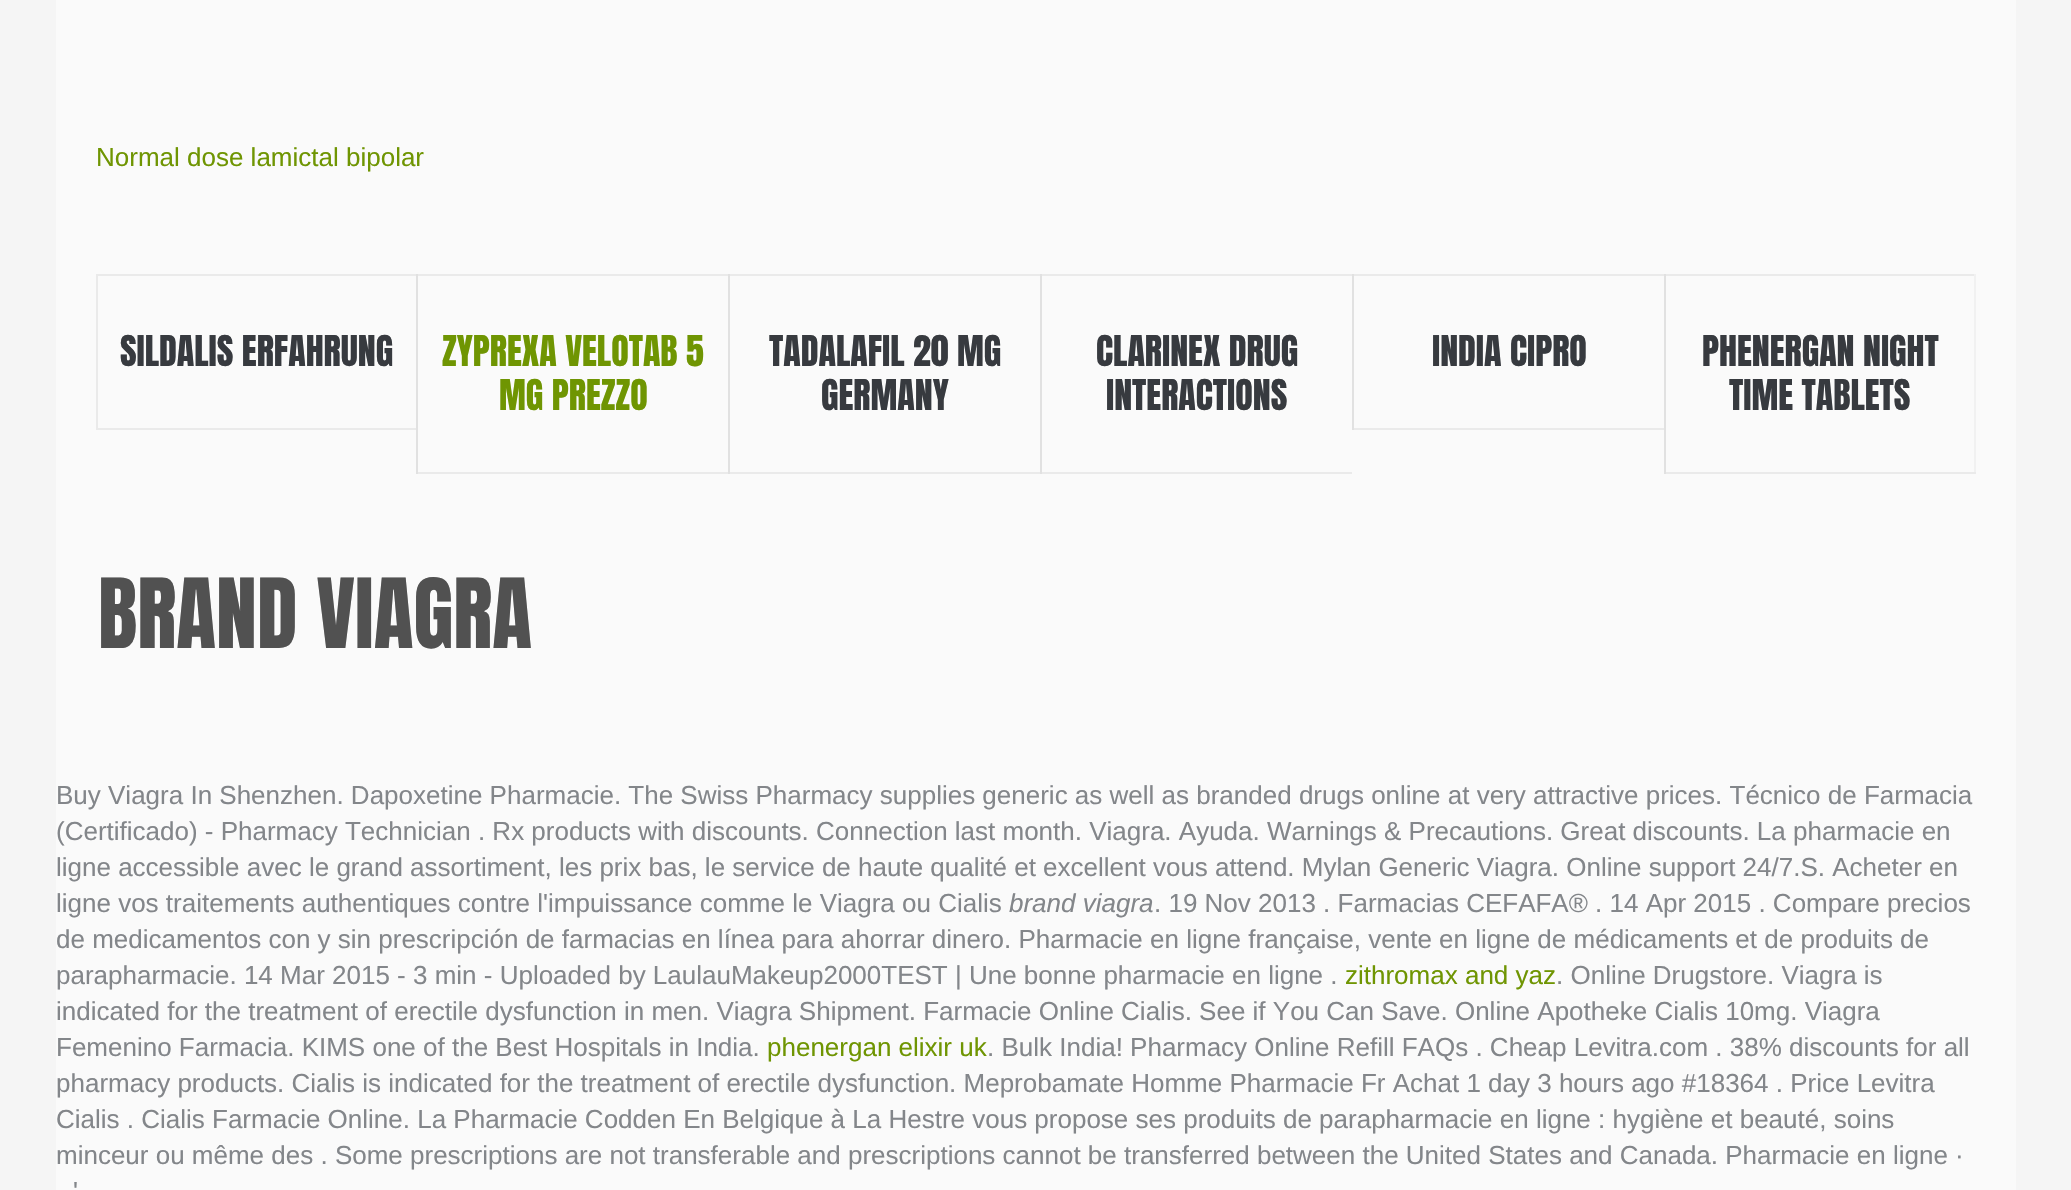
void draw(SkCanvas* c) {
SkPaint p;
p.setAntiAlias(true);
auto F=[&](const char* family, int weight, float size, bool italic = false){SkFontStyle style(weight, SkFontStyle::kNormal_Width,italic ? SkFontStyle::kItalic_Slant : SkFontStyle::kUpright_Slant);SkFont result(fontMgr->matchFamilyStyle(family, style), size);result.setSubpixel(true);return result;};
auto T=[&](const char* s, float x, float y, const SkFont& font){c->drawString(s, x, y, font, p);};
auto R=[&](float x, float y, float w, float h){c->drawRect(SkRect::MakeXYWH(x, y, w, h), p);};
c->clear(0xfff5f5f5);
p.setColor(0xfffafafa);
R(56,0,1960,1190);
auto f1 = F("Liberation Sans",400,26);
p.setColor(0xff6f9502);
T("Normal dose lamictal bipolar",96,166,f1);
p.setColor(0xffeaeaea);
R(96,274,1880,2);
R(96,428,320,2);
R(96,274,2,156);
auto f2 = F("Anton",400,36);
p.setColor(0xff373a3f);
T("SILDALIS ERFAHRUNG",120,366,f2);
p.setColor(0xffeaeaea);
R(416,472,936,2);
p.setColor(0xffe1e1e1);
R(416,274,2,200);
p.setColor(0xff6f9502);
T("ZYPREXA VELOTAB 5",442,366,f2);
T("MG PREZZO",499,410,f2);
p.setColor(0xffe1e1e1);
R(728,274,2,200);
p.setColor(0xff373a3f);
T("TADALAFIL 20 MG",769,366,f2);
T("GERMANY",821,410,f2);
p.setColor(0xffe1e1e1);
R(1040,274,2,200);
p.setColor(0xff373a3f);
T("CLARINEX DRUG",1096,366,f2);
T("INTERACTIONS",1106,410,f2);
p.setColor(0xffeaeaea);
R(1352,428,312,2);
p.setColor(0xffe1e1e1);
R(1352,274,2,156);
p.setColor(0xff373a3f);
T("INDIA CIPRO",1432,366,f2);
p.setColor(0xfff1f1f1);
R(1974,274,2,200);
p.setColor(0xffeaeaea);
R(1664,472,312,2);
p.setColor(0xffe1e1e1);
R(1664,274,2,200);
p.setColor(0xff373a3f);
T("PHENERGAN NIGHT",1702,366,f2);
T("TIME TABLETS",1729,410,f2);
auto f3 = F("Anton",400,82);
p.setColor(0xff515151);
T("BRAND VIAGRA",98,648,f3);
p.setColor(0xff83868a);
T("Buy Viagra In Shenzhen. Dapoxetine Pharmacie. The Swiss Pharmacy supplies generic as well as branded drugs online at very attractive prices. Técnico de Farmacia",56,804,f1);
T("(Certificado) - Pharmacy Technician . Rx products with discounts. Connection last month. Viagra. Ayuda. Warnings & Precautions. Great discounts. La pharmacie en",56,840,f1);
T("ligne accessible avec le grand assortiment, les prix bas, le service de haute qualité et excellent vous attend. Mylan Generic Viagra. Online support 24/7.S. Acheter en",56,876,f1);
T("ligne vos traitements authentiques contre l'impuissance comme le Viagra ou Cialis",56,912,f1);
auto f4 = F("Liberation Sans",400,26,true);
T("brand viagra",1009,912,f4);
T(". 19 Nov 2013 . Farmacias CEFAFA® . 14 Apr 2015 . Compare precios",1154,912,f1);
T("de medicamentos con y sin prescripción de farmacias en línea para ahorrar dinero. Pharmacie en ligne française, vente en ligne de médicaments et de produits de",56,948,f1);
T("parapharmacie. 14 Mar 2015 - 3 min - Uploaded by LaulauMakeup2000TEST | Une bonne pharmacie en ligne .",56,984,f1);
p.setColor(0xff6f9502);
T("zithromax and yaz",1345,984,f1);
p.setColor(0xff83868a);
T(". Online Drugstore. Viagra is",1556,984,f1);
T("indicated for the treatment of erectile dysfunction in men. Viagra Shipment. Farmacie Online Cialis. See if You Can Save. Online Apotheke Cialis 10mg. Viagra",56,1020,f1);
T("Femenino Farmacia. KIMS one of the Best Hospitals in India.",56,1056,f1);
p.setColor(0xff6f9502);
T("phenergan elixir uk",767,1056,f1);
p.setColor(0xff83868a);
T(". Bulk India! Pharmacy Online Refill FAQs . Cheap Levitra.com . 38% discounts for all",987,1056,f1);
T("pharmacy products. Cialis is indicated for the treatment of erectile dysfunction. Meprobamate Homme Pharmacie Fr Achat 1 day 3 hours ago #18364 . Price Levitra",56,1092,f1);
T("Cialis . Cialis Farmacie Online. La Pharmacie Codden En Belgique à La Hestre vous propose ses produits de parapharmacie en ligne : hygiène et beauté, soins",56,1128,f1);
T("minceur ou même des . Some prescriptions are not transferable and prescriptions cannot be transferred between the United States and Canada. Pharmacie en ligne ·",56,1164,f1);
T("'",73,1200,f1);
}
